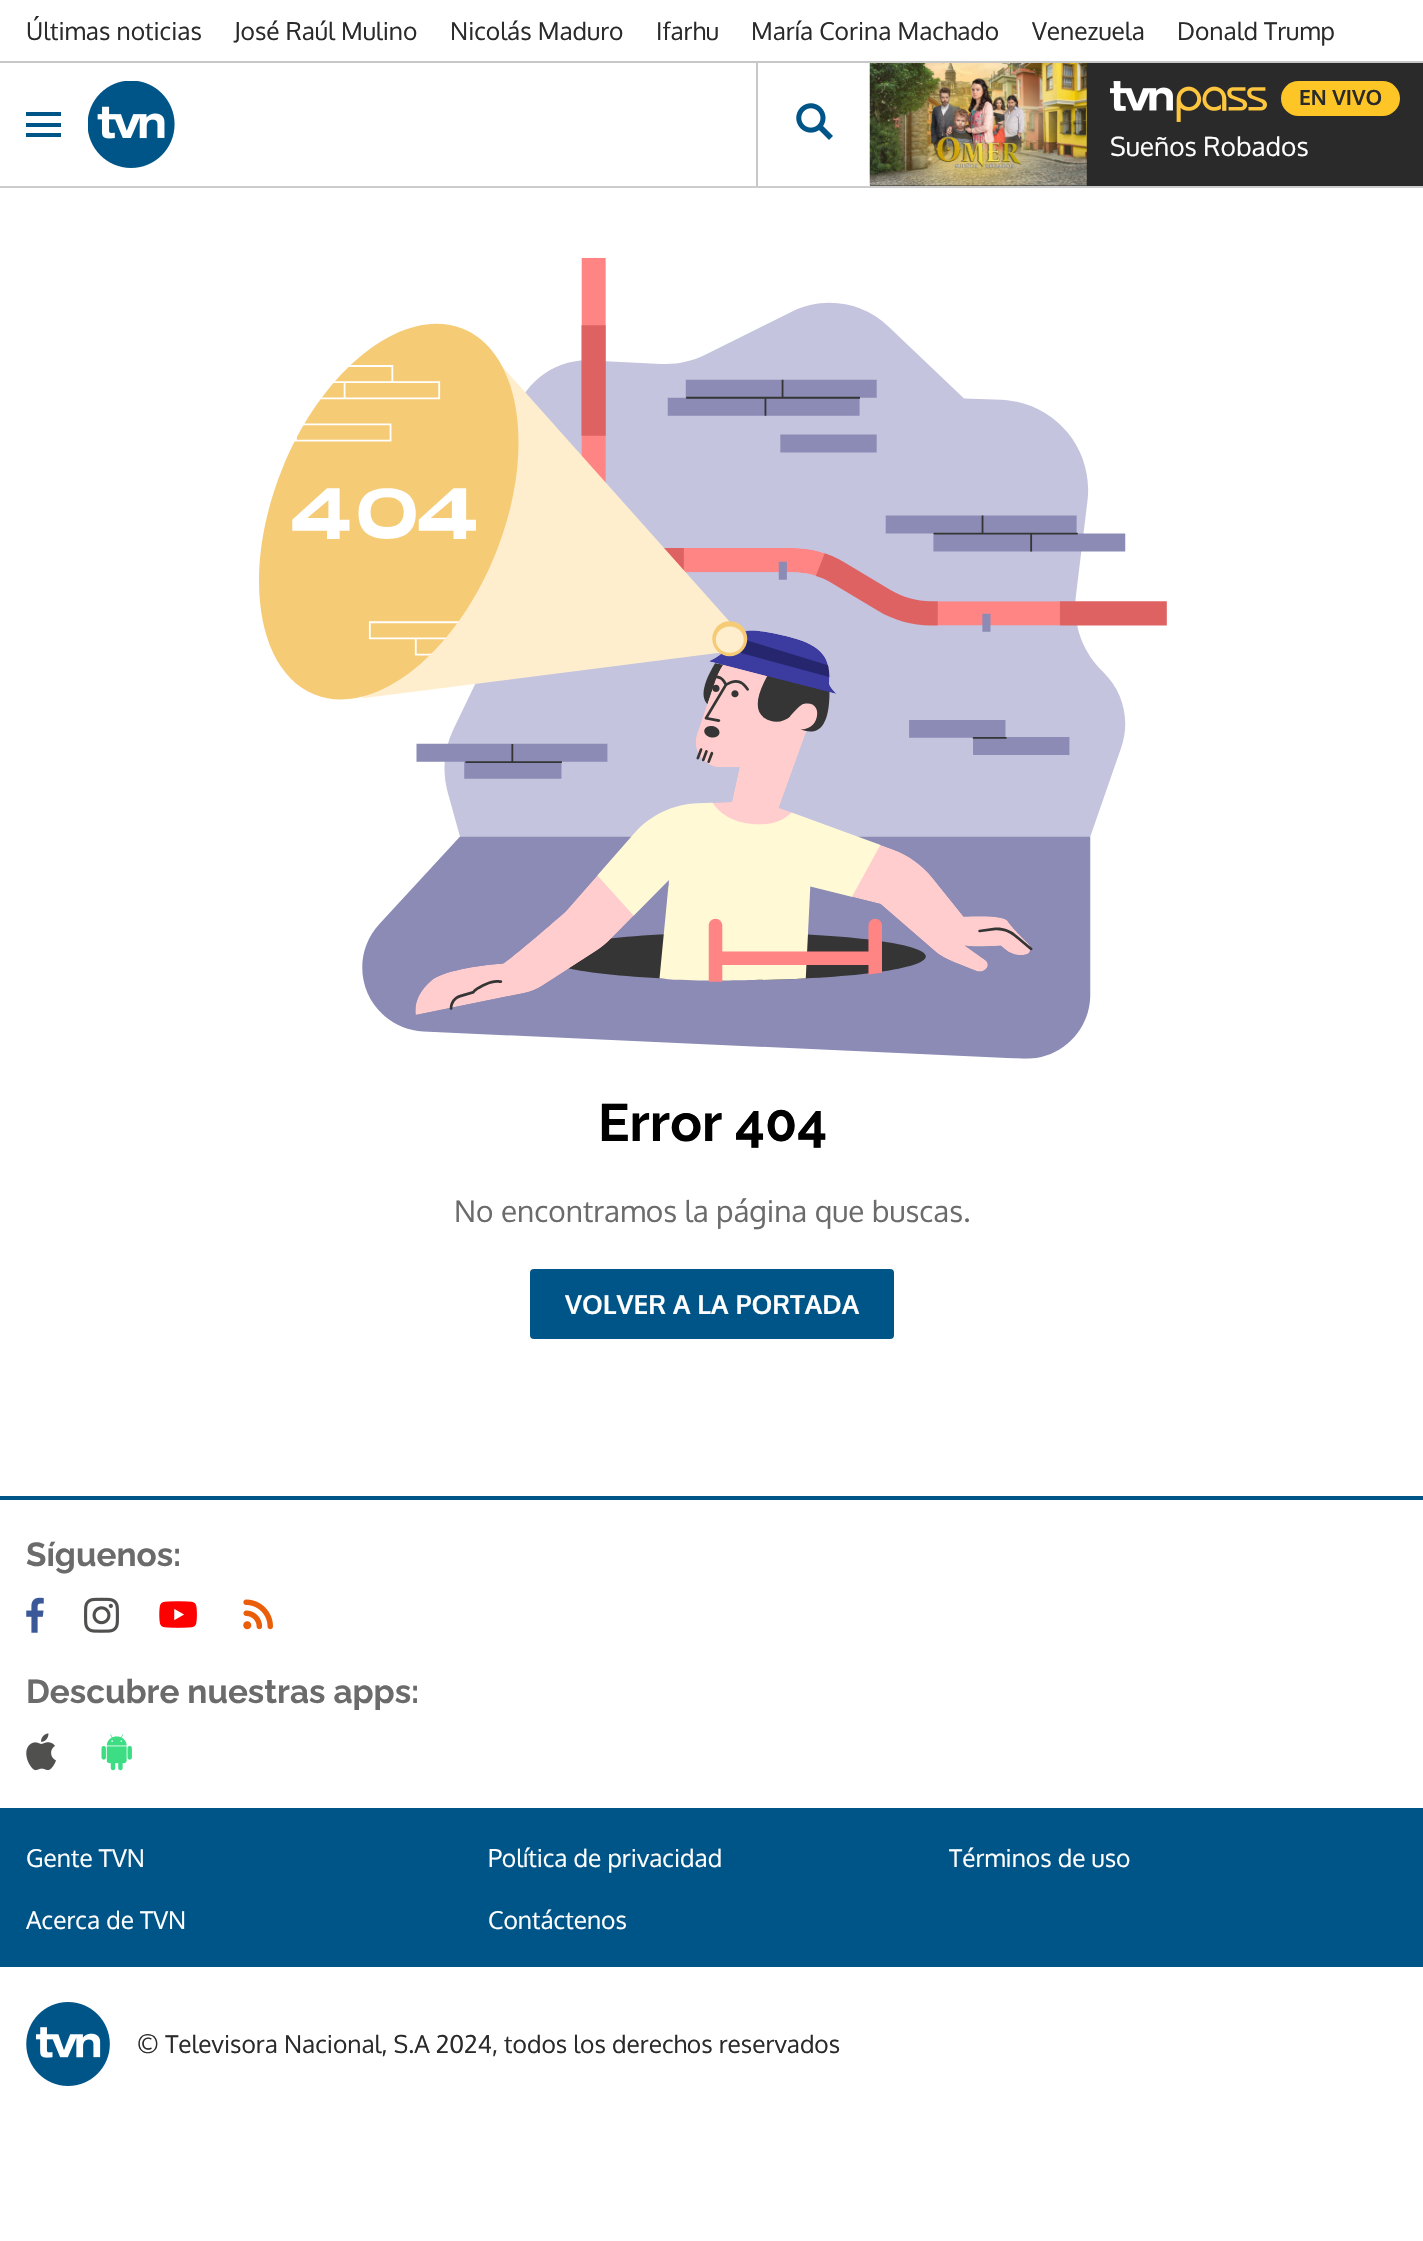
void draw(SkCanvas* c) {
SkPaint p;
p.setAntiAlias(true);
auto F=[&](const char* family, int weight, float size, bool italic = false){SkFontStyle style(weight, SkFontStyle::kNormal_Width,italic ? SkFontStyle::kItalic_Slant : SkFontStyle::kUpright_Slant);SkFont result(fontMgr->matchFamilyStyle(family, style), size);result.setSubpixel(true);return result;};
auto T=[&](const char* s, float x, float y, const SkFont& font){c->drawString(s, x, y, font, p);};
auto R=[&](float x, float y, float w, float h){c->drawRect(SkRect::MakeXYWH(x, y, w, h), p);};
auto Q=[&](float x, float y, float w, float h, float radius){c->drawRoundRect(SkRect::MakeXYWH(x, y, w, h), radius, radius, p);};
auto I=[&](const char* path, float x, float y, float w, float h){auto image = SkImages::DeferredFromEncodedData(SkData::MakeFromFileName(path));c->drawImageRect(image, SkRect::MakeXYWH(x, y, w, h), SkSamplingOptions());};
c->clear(0xffffffff);
p.setColor(0xffc7c7c7);
R(0,61,1423,2);
c->save();
c->clipRect(SkRect::MakeXYWH(26,16,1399,30));
auto f1 = F("Oxygen",400,24.5);
p.setColor(0xff2a2a2a);
T("Últimas noticias",26,40,f1);
c->restore();
T("José Raúl Mulino",234,40,f1);
T("Nicolás Maduro",450,40,f1);
T("Ifarhu",656,40,f1);
T("María Corina Machado",751,40,f1);
T("Venezuela",1032,40,f1);
T("Donald Trump",1177,40,f1);
p.setColor(0xffcccccc);
R(0,186,1423,2);
p.setColor(0xff005588);
R(26,112,35,4);
R(26,123,35,4);
R(26,133,35,4);
I("1.png",88,81,87,87);
p.setColor(0xffc7c7c7);
R(756,63,2,123);
I("2.png",796,103,37,37);
p.setColor(0xff2a2a2a);
R(870,63,553,123);
I("3.png",869,63,218,123);
I("4.png",1110,81,157,41);
p.setColor(0xfffec526);
Q(1281,81,119,35,17.5);
auto f2 = F("Oxygen",700,21);
p.setColor(0xff2a2a2a);
T("EN VIVO",1299,105,f2);
auto f3 = F("Oxygen",400,26.25);
p.setColor(0xffffffff);
T("Sueños Robados",1110,156,f3);
I("5.png",259,257,908,802);
auto f4 = F("Raleway",100,52.5);
p.setColor(0xff000000);
T("Error 404",598,1141,f4);
auto f5 = F("Oxygen",400,29.75);
p.setColor(0xff6b6b6b);
T("No encontramos la página que buscas.",454,1222,f5);
p.setColor(0xff005588);
Q(530,1269,364,70,4);
auto f6 = F("Oxygen",700,26.25);
p.setColor(0xffffffff);
T("VOLVER A LA PORTADA",565,1314,f6);
p.setColor(0xff005588);
R(0,1496,1423,4);
auto f7 = F("Raleway",100,33.25);
p.setColor(0xff6b6b6b);
T("Síguenos:",26,1566,f7);
I("6.png",26,1597,18,36);
I("7.png",84,1597,35,36);
I("8.png",159,1601,38,27);
I("9.png",243,1599,30,31);
T("Descubre nuestras apps:",26,1703,f7);
I("10.png",26,1733,30,38);
I("11.png",101,1734,31,37);
p.setColor(0xff005588);
R(0,1808,1423,159);
p.setColor(0xffffffff);
T("Gente TVN",26,1867,f1);
T("Política de privacidad",488,1867,f1);
T("Términos de uso",949,1867,f1);
T("Acerca de TVN",26,1929,f1);
T("Contáctenos",488,1929,f1);
I("12.png",26,2002,84,84);
p.setColor(0xff2a2a2a);
T("© Televisora Nacional, S.A 2024, todos los derechos reservados",137,2053,f1);
}
